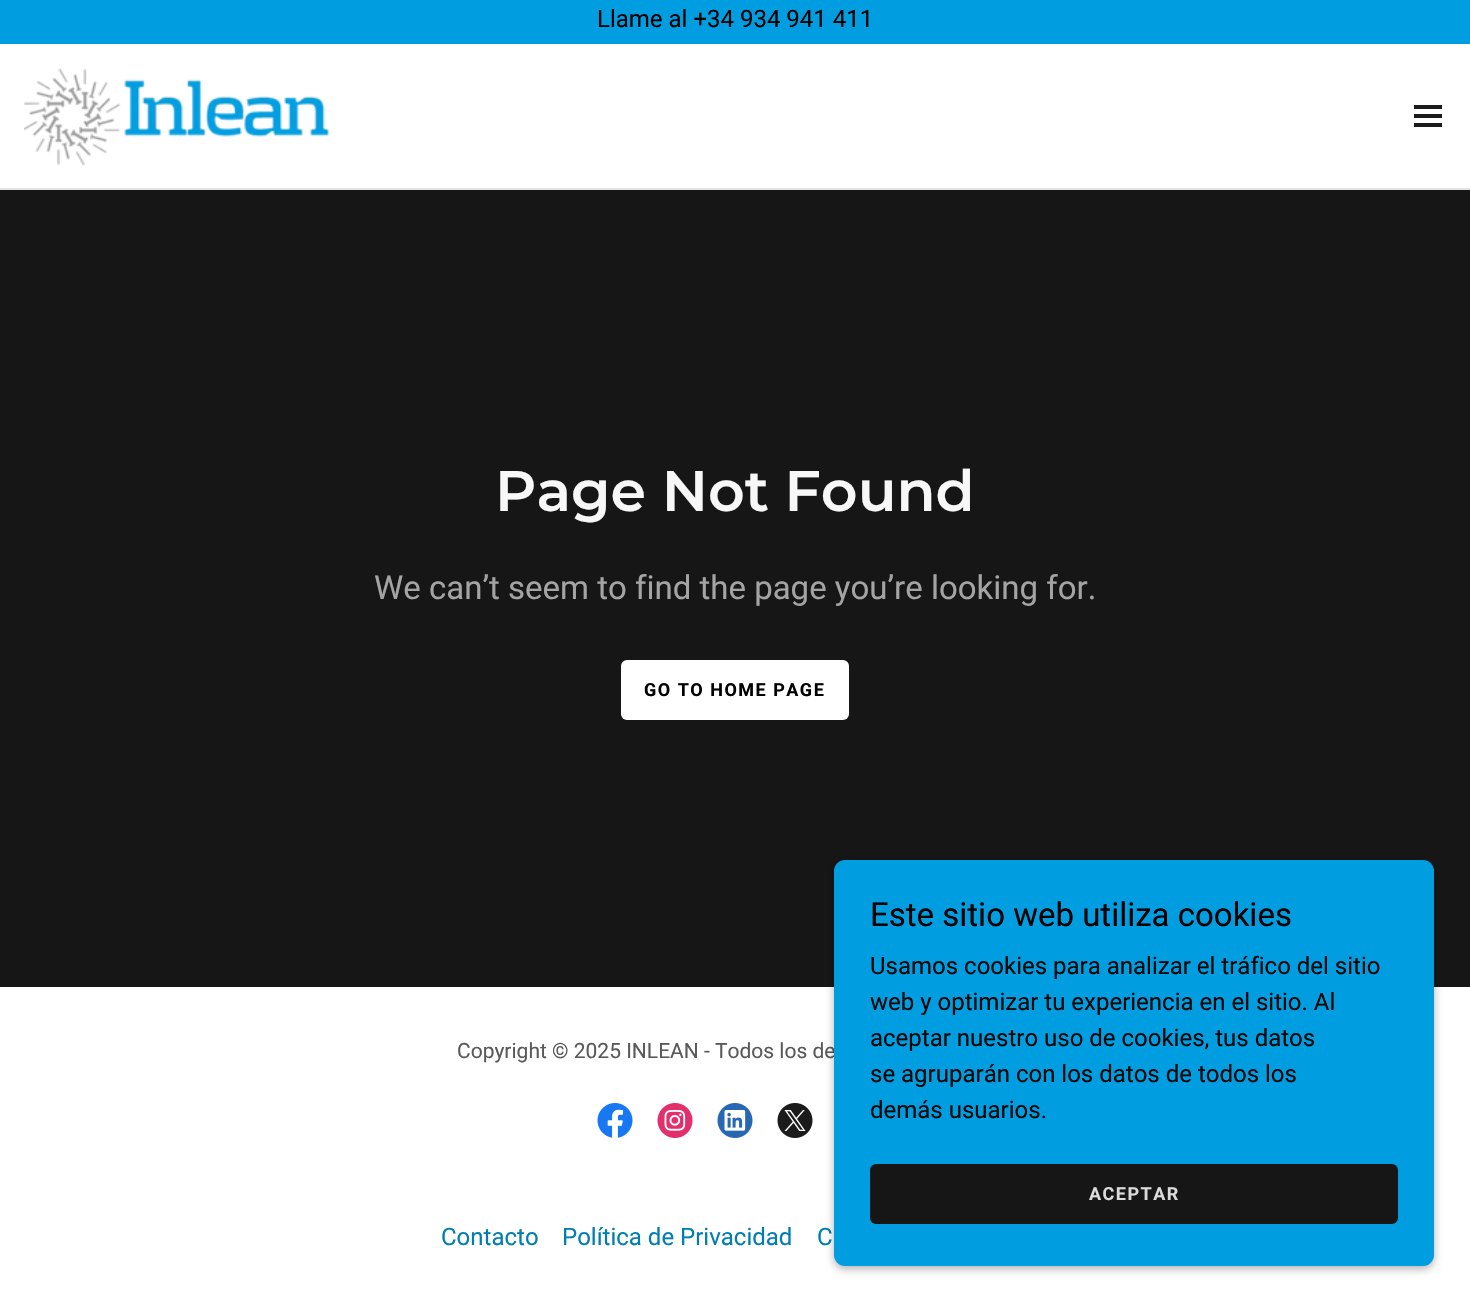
void draw(SkCanvas* c) {
SkPaint p;
p.setAntiAlias(true);
auto F=[&](const char* family, int weight, float size, bool italic = false){SkFontStyle style(weight, SkFontStyle::kNormal_Width,italic ? SkFontStyle::kItalic_Slant : SkFontStyle::kUpright_Slant);SkFont result(fontMgr->matchFamilyStyle(family, style), size);result.setSubpixel(true);return result;};
auto T=[&](const char* s, float x, float y, const SkFont& font){c->drawString(s, x, y, font, p);};
auto L=[&](const char* s, float x, float y, const SkFont& font, const SkPaint& ink, float letter, float word){std::vector<SkGlyphID> glyphs(font.countText(s, strlen(s), SkTextEncoding::kUTF8));std::vector<float> xs(glyphs.size());font.textToGlyphs(s, strlen(s), SkTextEncoding::kUTF8, glyphs);font.getXPos(glyphs, xs, x);float extra = 0;for (size_t i = 0; i < glyphs.size(); i++) {xs[i] += extra;extra += letter + word * (glyphs[i] == font.unicharToGlyph(' '));}c->drawTextBlob(SkTextBlob::MakeFromPosHGlyphs(glyphs, xs, y, font), 0, 0, ink);};
auto R=[&](float x, float y, float w, float h){c->drawRect(SkRect::MakeXYWH(x, y, w, h), p);};
auto Q=[&](float x, float y, float w, float h, float radius){c->drawRoundRect(SkRect::MakeXYWH(x, y, w, h), radius, radius, p);};
auto I=[&](const char* path, float x, float y, float w, float h){auto image = SkImages::DeferredFromEncodedData(SkData::MakeFromFileName(path));c->drawImageRect(image, SkRect::MakeXYWH(x, y, w, h), SkSamplingOptions());};
c->clear(0xffffffff);
p.setColor(0xff009ee0);
R(0,0,1470,44);
auto f1 = F("Roboto",400,24);
p.setColor(0xff000000);
T("Llame al +34 934 941 411",597,27,f1);
I("1.png",24,68,305,98);
p.setColor(0xff1b1b1b);
R(1414,105,28,4);
R(1414,114,28,4);
R(1414,123,28,4);
p.setColor(0xffe2e2e2);
R(0,188,1470,2);
p.setColor(0xff161616);
R(0,190,1470,797);
auto f2 = F("Montserrat",600,57);
p.setColor(0xfff7f7f7);
T("Page Not Found",495,511,f2);
auto f3 = F("Roboto",400,33);
p.setColor(0xffa4a4a4);
T("We can’t seem to find the page you’re looking for.",374,599,f3);
p.setColor(0xffffffff);
Q(621,660,228,60,6);
auto f4 = F("Roboto",700,18);
p.setColor(0xff000000);
L("GO TO HOME PAGE",644,696,f4,p,1.5,0);
auto f5 = F("Roboto",400,21);
p.setColor(0xff595959);
T("Copyright © 2025 INLEAN - Todos los de",457,1058,f5);
I("2.png",597,1103,36,35);
I("3.png",657,1103,36,35);
I("4.png",717,1103,36,35);
I("5.png",777,1103,36,35);
p.setColor(0xff007eb2);
T("Contacto",441,1245,f1);
T("Política de Privacidad",562,1245,f1);
T("C",817,1245,f1);
p.setColor(0x4d000000);
p.setMaskFilter(SkMaskFilter::MakeBlur(kNormal_SkBlurStyle, 4.5));
c->drawRoundRect(SkRect::MakeXYWH(834,863,600,406),11,11,p);
p.setMaskFilter(nullptr);
p.setColor(0xff009ee0);
Q(834,860,600,406,11);
p.setColor(0xff000000);
T("Este sitio web utiliza cookies",870,926,f3);
p.setColor(0xff050606);
T("Usamos cookies para analizar el tráfico del sitio",870,974,f1);
T("web y optimizar tu experiencia en el sitio. Al",870,1010,f1);
T("aceptar nuestro uso de cookies, tus datos",870,1046,f1);
T("se agruparán con los datos de todos los",870,1082,f1);
T("demás usuarios.",870,1118,f1);
p.setColor(0xff161616);
Q(870,1164,528,60,6);
p.setColor(0xffdbdbdb);
L("ACEPTAR",1089,1200,f4,p,1.5,0);
}
